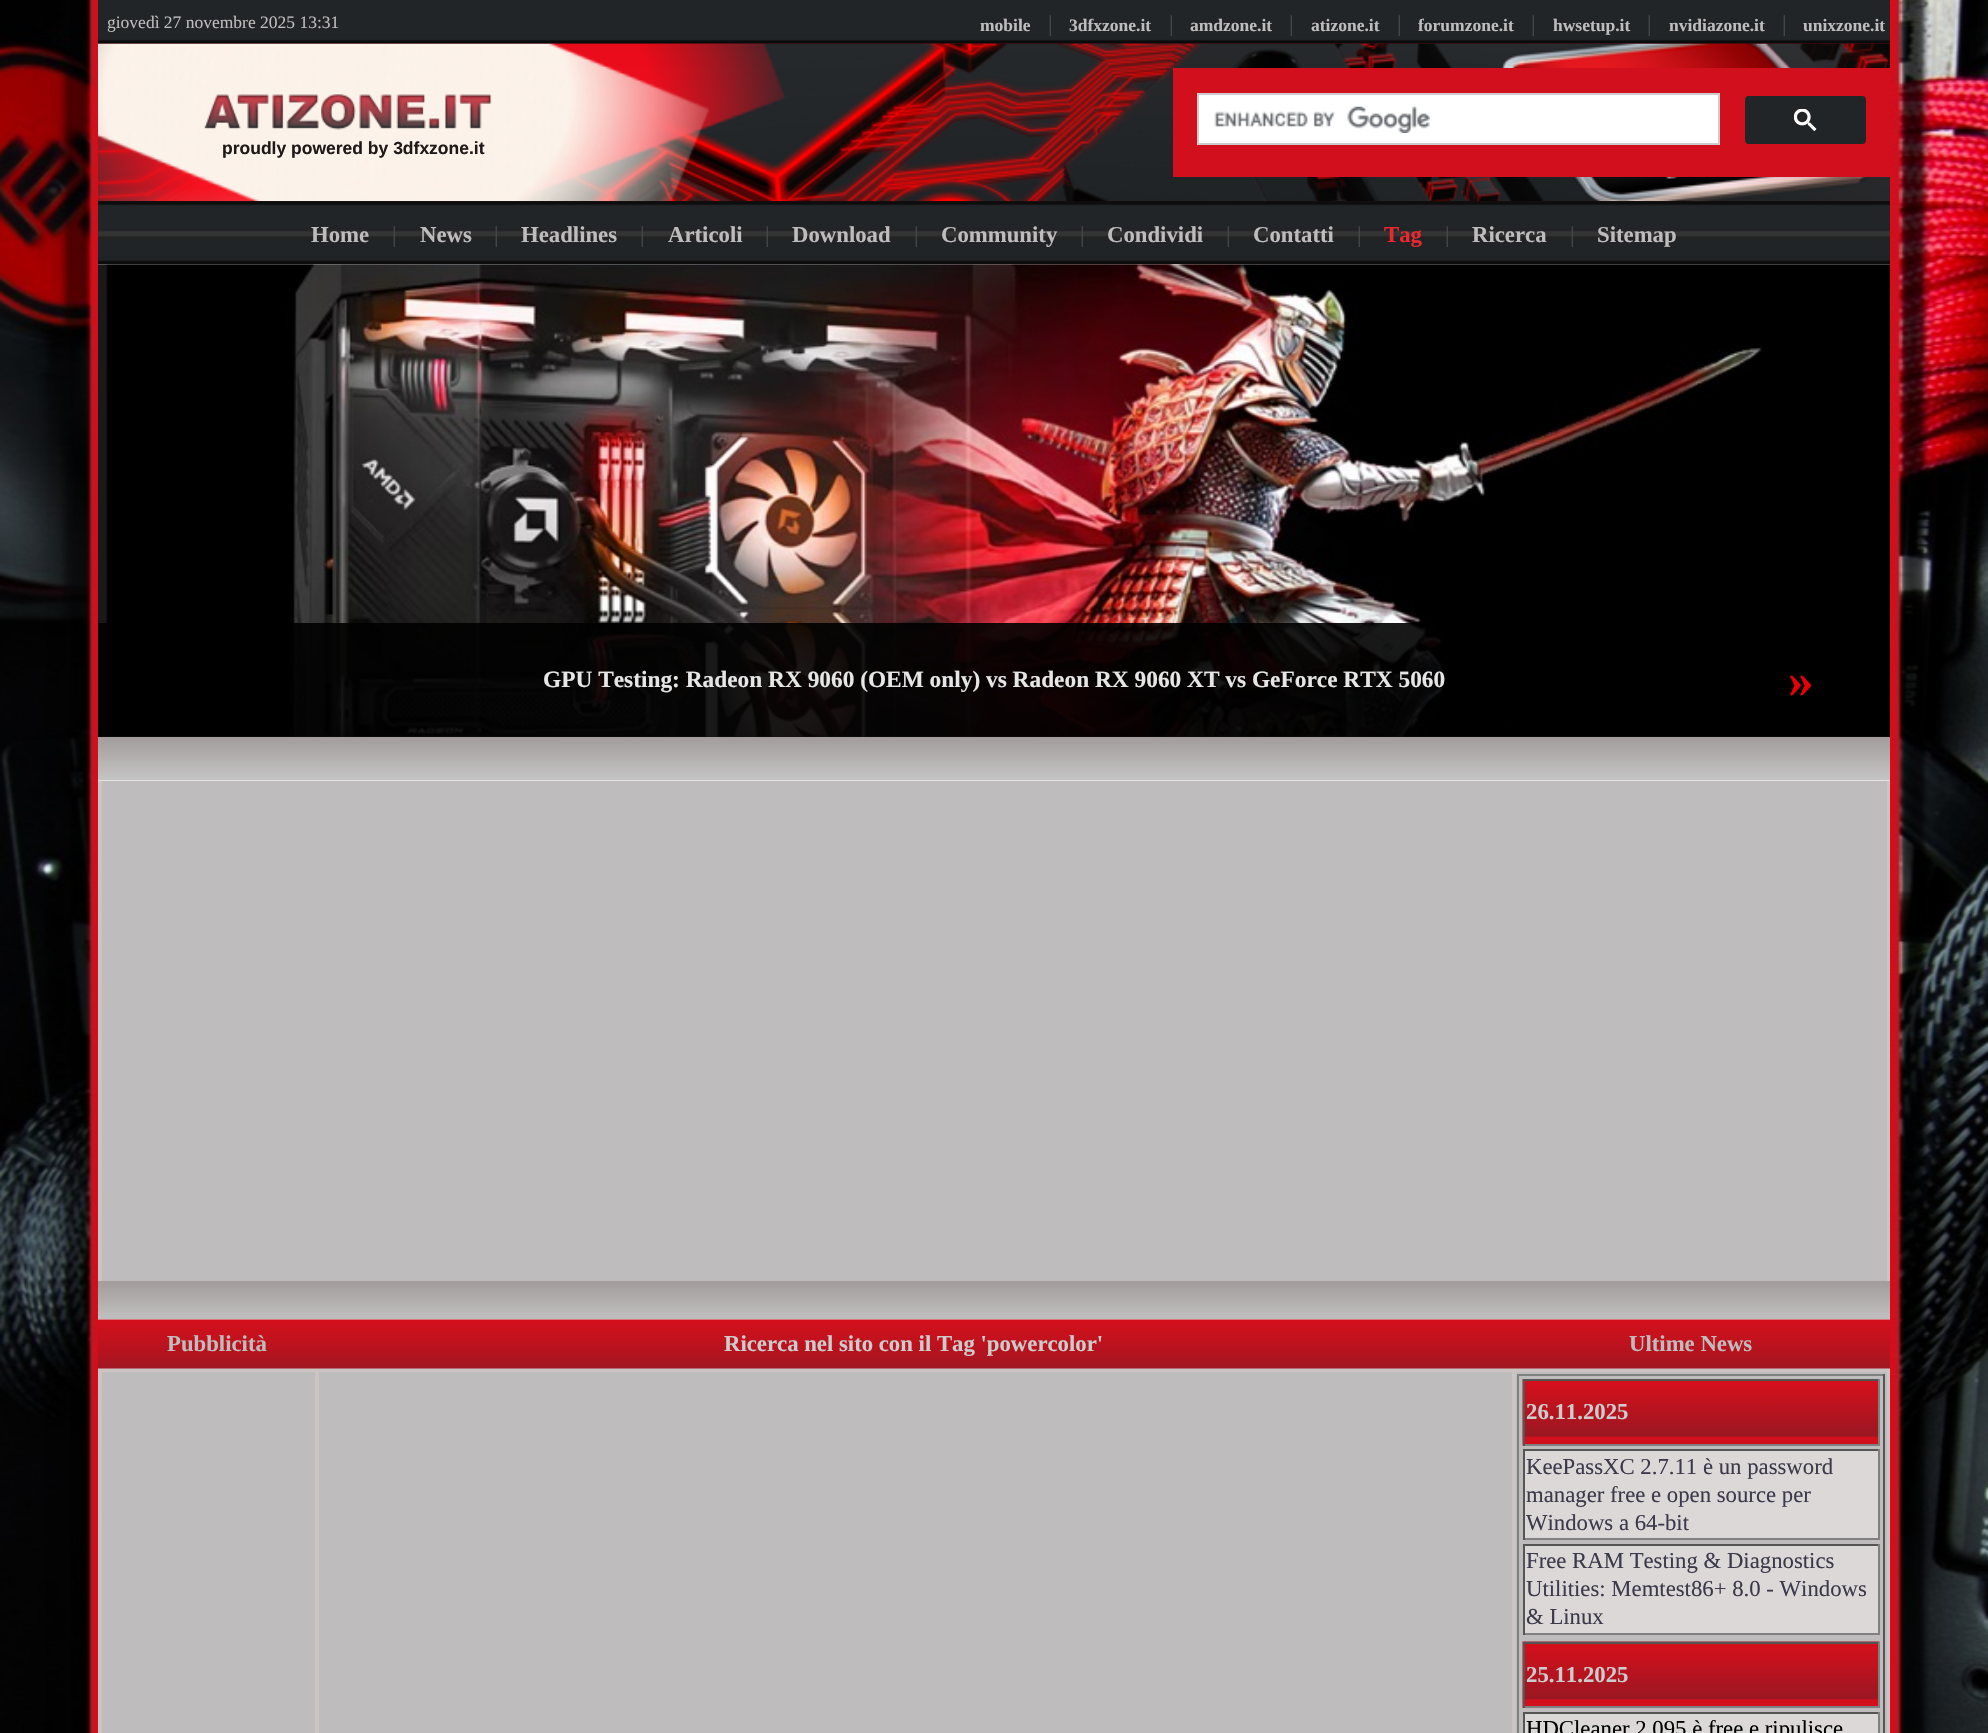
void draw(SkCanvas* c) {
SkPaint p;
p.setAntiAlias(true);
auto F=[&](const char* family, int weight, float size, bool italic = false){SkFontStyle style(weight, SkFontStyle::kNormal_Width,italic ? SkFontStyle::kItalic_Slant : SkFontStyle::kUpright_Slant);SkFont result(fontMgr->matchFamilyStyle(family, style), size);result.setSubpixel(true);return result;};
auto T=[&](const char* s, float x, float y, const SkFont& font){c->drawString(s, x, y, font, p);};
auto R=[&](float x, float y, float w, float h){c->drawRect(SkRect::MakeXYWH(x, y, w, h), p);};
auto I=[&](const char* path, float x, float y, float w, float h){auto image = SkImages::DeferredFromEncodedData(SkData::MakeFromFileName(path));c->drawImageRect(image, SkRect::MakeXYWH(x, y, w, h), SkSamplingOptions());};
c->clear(0xffffffff);
I("1.png",0,0,1988,1733);
I("2.png",98,0,448,44);
auto f1 = F("Liberation Serif",400,17.5);
p.setColor(0xffbfbcbd);
T("giovedì 27 novembre 2025 13:31",107,28,f1);
I("3.png",546,0,1344,44);
auto f2 = F("Liberation Serif",700,17.5);
T("mobile",980,31,f2);
auto f3 = F("Liberation Serif",400,22.75);
p.setColor(0xff484848);
T("|",1048,31,f3);
p.setColor(0xffbfbcbd);
T("3dfxzone.it",1069,31,f2);
p.setColor(0xff484848);
T("|",1169,31,f3);
p.setColor(0xffbfbcbd);
T("amdzone.it",1190,31,f2);
p.setColor(0xff484848);
T("|",1289,31,f3);
p.setColor(0xffbfbcbd);
T("atizone.it",1311,31,f2);
p.setColor(0xff484848);
T("|",1397,31,f3);
p.setColor(0xffbfbcbd);
T("forumzone.it",1418,31,f2);
p.setColor(0xff484848);
T("|",1531,31,f3);
p.setColor(0xffbfbcbd);
T("hwsetup.it",1553,31,f2);
p.setColor(0xff484848);
T("|",1647,31,f3);
p.setColor(0xffbfbcbd);
T("nvidiazone.it",1669,31,f2);
p.setColor(0xff484848);
T("|",1782,31,f3);
p.setColor(0xffbfbcbd);
T("unixzone.it",1803,31,f2);
I("4.png",98,43,1792,159);
I("5.png",204,94,288,36);
auto f4 = F("Liberation Sans",700,17.5);
p.setColor(0xff1f1919);
T("proudly powered by 3dfxzone.it",222,154,f4);
p.setColor(0xffd20f1d);
R(1173,68,717,109);
p.setColor(0xffffffff);
c->drawRect(SkRect::MakeXYWH(1198,94,521,50),p);
p.setStroke(true);
p.setStrokeWidth(2);
p.setColor(0xffcccccc);
c->drawRect(SkRect::MakeXYWH(1198,94,521,50),p);
I("6.png",1214,106,216,27);
p.setStroke(false);
p.setColor(0xff212528);
c->drawRoundRect(SkRect::MakeXYWH(1746,97,119,46),3,3,p);
p.setStroke(true);
c->drawRoundRect(SkRect::MakeXYWH(1746,97,119,46),3,3,p);
I("7.png",1794,109,23,22);
I("8.png",98,201,1792,1);
I("9.png",98,201,1792,63);
auto f5 = F("Liberation Serif",700,22.75);
p.setStroke(false);
p.setColor(0xffbfbcbd);
T("Home",311,242,f5);
p.setColor(0xff484848);
T("|",392,242,f3);
p.setColor(0xffbfbcbd);
T("News",420,242,f5);
p.setColor(0xff484848);
T("|",494,242,f3);
p.setColor(0xffbfbcbd);
T("Headlines",521,242,f5);
p.setColor(0xff484848);
T("|",640,242,f3);
p.setColor(0xffbfbcbd);
T("Articoli",668,242,f5);
p.setColor(0xff484848);
T("|",765,242,f3);
p.setColor(0xffbfbcbd);
T("Download",792,242,f5);
p.setColor(0xff484848);
T("|",914,242,f3);
p.setColor(0xffbfbcbd);
T("Community",941,242,f5);
p.setColor(0xff484848);
T("|",1080,242,f3);
p.setColor(0xffbfbcbd);
T("Condividi",1107,242,f5);
p.setColor(0xff484848);
T("|",1226,242,f3);
p.setColor(0xffbfbcbd);
T("Contatti",1253,242,f5);
p.setColor(0xff484848);
T("|",1357,242,f3);
p.setColor(0xffeb2830);
T("Tag",1384,242,f5);
p.setColor(0xff484848);
T("|",1445,242,f3);
p.setColor(0xffbfbcbd);
T("Ricerca",1472,242,f5);
p.setColor(0xff484848);
T("|",1570,242,f3);
p.setColor(0xffbfbcbd);
T("Sitemap",1597,242,f5);
p.setColor(0xffffffff);
R(98,264,1792,1056);
I("10.png",98,264,1792,473);
I("11.png",98,736,1792,45);
p.setColor(0xe6000000);
R(98,623,179,114);
R(277,623,1435,114);
auto f6 = F("Liberation Serif",700,23.35);
p.setColor(0xffe6e6e6);
T("GPU Testing: Radeon RX 9060 (OEM only) vs Radeon RX 9060 XT vs GeForce RTX 5060",543,687,f6);
p.setColor(0xe6000000);
R(1712,736,178,1);
auto f7 = F("Liberation Serif",700,51);
p.setColor(0xffe60005);
T("»",1788,697,f7);
p.setColor(0xffccc4c3);
R(98,781,1792,500);
p.setColor(0xffbfbcbd);
R(102,781,1785,500);
I("12.png",98,1281,1792,39);
p.setColor(0xffccc4c3);
R(98,1368,1792,365);
I("13.png",98,1319,1792,50);
p.setColor(0xffbfbcbd);
T("Pubblicità",167,1351,f5);
p.setColor(0xffcccccc);
T("Ricerca nel sito con il Tag 'powercolor'",724,1351,f5);
p.setColor(0xffbfbcbd);
T("Ultime News",1629,1351,f5);
R(102,1372,213,361);
R(319,1372,1193,361);
R(1516,1372,371,361);
p.setColor(0xff808080);
R(1517,1374,368,2);
p.setColor(0xff555555);
R(1883,1374,2,359);
p.setColor(0xff808080);
R(1517,1374,2,359);
I("14.png",1522,1379,356,67);
p.setColor(0xff555555);
R(1523,1379,357,2);
p.setColor(0xff808080);
R(1878,1379,2,67);
R(1523,1444,357,2);
p.setColor(0xff555555);
R(1523,1379,2,67);
p.setColor(0xffcccccc);
T("26.11.2025",1526,1419,f5);
p.setColor(0xffdbd8d7);
R(1525,1451,353,87);
p.setColor(0xff555555);
R(1523,1449,357,2);
p.setColor(0xff808080);
R(1878,1449,2,91);
R(1523,1538,357,2);
p.setColor(0xff555555);
R(1523,1449,2,91);
p.setColor(0xff3c394a);
T("KeePassXC 2.7.11 è un password",1526,1474,f3);
T("manager free e open source per",1526,1502,f3);
T("Windows a 64-bit",1526,1530,f3);
p.setColor(0xffdbd8d7);
R(1525,1546,353,87);
p.setColor(0xff555555);
R(1523,1544,357,2);
p.setColor(0xff808080);
R(1878,1544,2,91);
R(1523,1633,357,2);
p.setColor(0xff555555);
R(1523,1544,2,91);
p.setColor(0xff3c394a);
T("Free RAM Testing & Diagnostics",1526,1568,f3);
T("Utilities: Memtest86+ 8.0 - Windows",1526,1596,f3);
T("& Linux",1526,1624,f3);
I("15.png",1522,1641,358,67);
p.setColor(0xff555555);
R(1523,1642,357,2);
p.setColor(0xff808080);
R(1878,1642,2,66);
R(1523,1706,357,2);
p.setColor(0xff555555);
R(1523,1642,2,66);
p.setColor(0xffcccccc);
T("25.11.2025",1526,1682,f5);
p.setColor(0xffdbd8d7);
R(1525,1714,353,19);
p.setColor(0xff555555);
R(1523,1712,357,2);
p.setColor(0xff808080);
R(1878,1712,2,21);
p.setColor(0xff555555);
R(1523,1712,2,21);
p.setColor(0xff000000);
T("HDCleaner 2.095 è free e ripulisce",1526,1736,f3);
}
